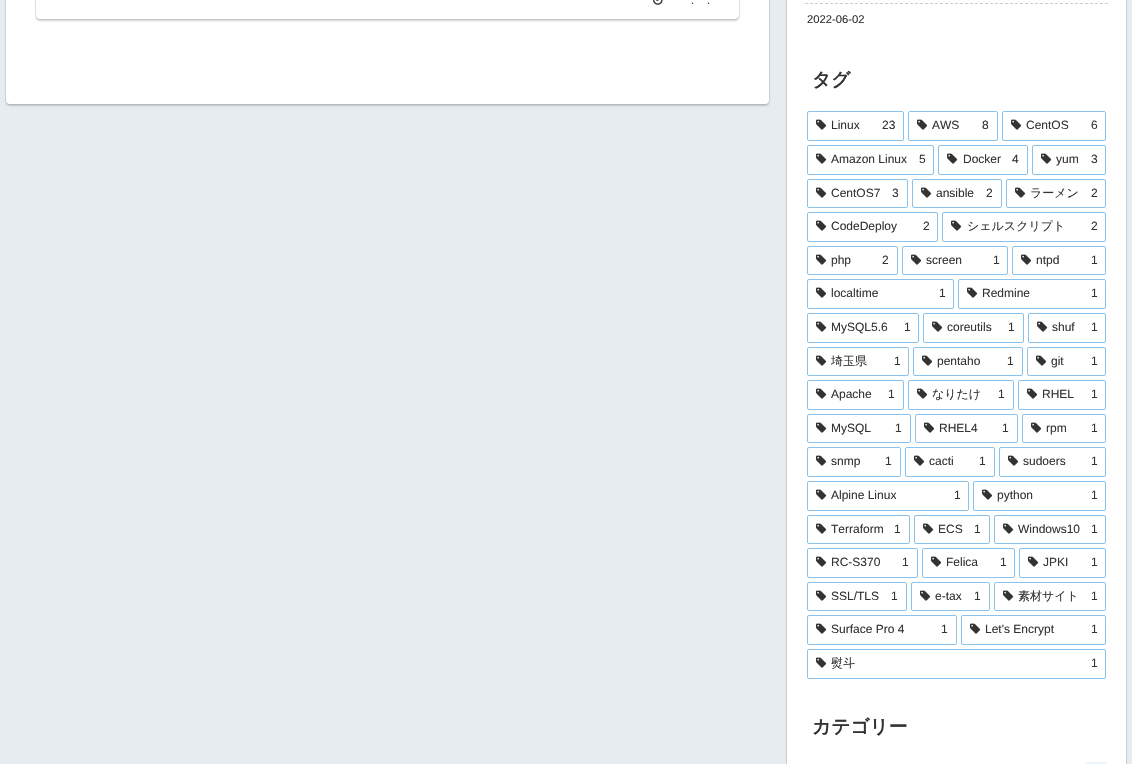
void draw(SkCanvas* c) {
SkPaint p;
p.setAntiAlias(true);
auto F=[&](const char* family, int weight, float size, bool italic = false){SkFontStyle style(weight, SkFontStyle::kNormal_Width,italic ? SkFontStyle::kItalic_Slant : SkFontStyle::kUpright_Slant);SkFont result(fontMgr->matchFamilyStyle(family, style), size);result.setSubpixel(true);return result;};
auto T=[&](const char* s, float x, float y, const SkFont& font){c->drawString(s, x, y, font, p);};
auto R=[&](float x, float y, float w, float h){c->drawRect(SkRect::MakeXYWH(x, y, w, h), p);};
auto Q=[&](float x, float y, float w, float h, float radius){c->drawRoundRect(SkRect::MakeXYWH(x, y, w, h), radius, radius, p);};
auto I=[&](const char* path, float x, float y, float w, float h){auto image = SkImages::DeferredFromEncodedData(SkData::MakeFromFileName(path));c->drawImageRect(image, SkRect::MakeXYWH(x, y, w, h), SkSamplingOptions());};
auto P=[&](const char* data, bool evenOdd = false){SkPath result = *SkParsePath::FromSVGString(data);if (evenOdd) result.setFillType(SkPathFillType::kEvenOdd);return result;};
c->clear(0xffe6ecf0);
p.setStroke(true);
p.setStrokeWidth(1);
p.setColor(0xffd4d9dd);
c->drawRoundRect(SkRect::MakeXYWH(5.5,-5.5,764,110),4.5,4.5,p);
p.setStroke(false);
p.setColor(0x29000000);
p.setMaskFilter(SkMaskFilter::MakeBlur(kNormal_SkBlurStyle, 1));
c->drawRoundRect(SkRect::MakeXYWH(6,-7,763,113),4,4,p);
p.setMaskFilter(nullptr);
p.setColor(0xffffffff);
Q(6,-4,763,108,4);
p.setStroke(true);
p.setColor(0xffebebeb);
c->drawRoundRect(SkRect::MakeXYWH(35.5,-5.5,704,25),4.5,4.5,p);
c->save();
c->clipPath(P("M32 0h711v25h-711zm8-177h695c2 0 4 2 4 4v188c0 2-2 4-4 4h-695c-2 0-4-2-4-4v-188c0-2 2-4 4-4z",true),true);
p.setStroke(false);
p.setColor(0x29000000);
p.setMaskFilter(SkMaskFilter::MakeBlur(kNormal_SkBlurStyle, 1));
c->drawRoundRect(SkRect::MakeXYWH(36,-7,703,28),4,4,p);
p.setMaskFilter(nullptr);
c->restore();
I("1.png",653,0,10,5);
auto f1 = F("Liberation Sans",400,11.25);
p.setColor(0xff333333);
T(".",691,4,f1);
T(".",707,4,f1);
p.setStroke(true);
p.setColor(0xffd4d9dd);
c->drawRect(SkRect::MakeXYWH(786.5,-.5,340,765),p);
p.setStroke(false);
p.setColor(0x29000000);
p.setMaskFilter(SkMaskFilter::MakeBlur(kNormal_SkBlurStyle, 1));
c->drawRoundRect(SkRect::MakeXYWH(787,-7,339,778),4,4,p);
p.setMaskFilter(nullptr);
p.setColor(0xffffffff);
R(787,0,339,764);
p.setStroke(true);
p.setColor(0xffcccccc);
p.setPathEffect(SkDashPathEffect::Make({{3,2}}, 0));
c->drawPath(P("M805 3.5h303"),p);
p.setPathEffect(nullptr);
p.setStroke(false);
p.setColor(0xff333333);
T("2022-06-02",807,23,f1);
auto f2 = F("WenQuanYi Zen Hei",700,18.75);
T("タグ",812,86,f2);
p.setStroke(true);
p.setColor(0xff89c3eb);
c->drawRoundRect(SkRect::MakeXYWH(807.5,111.5,96,29),1.5,1.5,p);
I("2.png",816,119,11,11);
auto f3 = F("Liberation Sans",400,12);
p.setStroke(false);
p.setColor(0xff333333);
T("Linux",831,129,f3);
T("23",882,129,f3);
p.setStroke(true);
p.setColor(0xff89c3eb);
c->drawRoundRect(SkRect::MakeXYWH(908.5,111.5,89,29),1.5,1.5,p);
I("2.png",917,119,11,11);
p.setStroke(false);
p.setColor(0xff333333);
T("AWS",932,129,f3);
T("8",982,129,f3);
p.setStroke(true);
p.setColor(0xff89c3eb);
c->drawRoundRect(SkRect::MakeXYWH(1002.5,111.5,103,29),1.5,1.5,p);
I("2.png",1011,119,11,11);
p.setStroke(false);
p.setColor(0xff333333);
T("CentOS",1026,129,f3);
T("6",1091,129,f3);
p.setStroke(true);
p.setColor(0xff89c3eb);
c->drawRoundRect(SkRect::MakeXYWH(807.5,145.5,126,29),1.5,1.5,p);
I("2.png",816,153,11,11);
p.setStroke(false);
p.setColor(0xff333333);
T("Amazon Linux",831,163,f3);
T("5",919,163,f3);
p.setStroke(true);
p.setColor(0xff89c3eb);
c->drawRoundRect(SkRect::MakeXYWH(938.5,145.5,89,29),1.5,1.5,p);
I("2.png",947,153,11,11);
p.setStroke(false);
p.setColor(0xff333333);
T("Docker",963,163,f3);
T("4",1012,163,f3);
p.setStroke(true);
p.setColor(0xff89c3eb);
c->drawRoundRect(SkRect::MakeXYWH(1032.5,145.5,73,29),1.5,1.5,p);
I("2.png",1041,153,11,11);
p.setStroke(false);
p.setColor(0xff333333);
T("yum",1056,163,f3);
T("3",1091,163,f3);
p.setStroke(true);
p.setColor(0xff89c3eb);
c->drawRoundRect(SkRect::MakeXYWH(807.5,179.5,100,28),1.5,1.5,p);
I("2.png",816,187,11,11);
p.setStroke(false);
p.setColor(0xff333333);
T("CentOS7",831,197,f3);
T("3",892,197,f3);
p.setStroke(true);
p.setColor(0xff89c3eb);
c->drawRoundRect(SkRect::MakeXYWH(912.5,179.5,89,28),1.5,1.5,p);
I("2.png",921,187,11,11);
p.setStroke(false);
p.setColor(0xff333333);
T("ansible",936,197,f3);
T("2",986,197,f3);
p.setStroke(true);
p.setColor(0xff89c3eb);
c->drawRoundRect(SkRect::MakeXYWH(1006.5,179.5,99,28),1.5,1.5,p);
I("2.png",1015,187,11,11);
auto f4 = F("WenQuanYi Zen Hei",500,12);
p.setStroke(false);
p.setColor(0xff333333);
T("ラーメン",1030,197,f4);
T("2",1091,197,f3);
p.setStroke(true);
p.setColor(0xff89c3eb);
c->drawRoundRect(SkRect::MakeXYWH(807.5,212.5,130,29),1.5,1.5,p);
I("2.png",816,220,11,11);
p.setStroke(false);
p.setColor(0xff333333);
T("CodeDeploy",831,230,f3);
T("2",923,230,f3);
p.setStroke(true);
p.setColor(0xff89c3eb);
c->drawRoundRect(SkRect::MakeXYWH(942.5,212.5,163,29),1.5,1.5,p);
I("2.png",951,220,11,11);
p.setStroke(false);
p.setColor(0xff333333);
T("シェルスクリプト",967,230,f4);
T("2",1091,230,f3);
p.setStroke(true);
p.setColor(0xff89c3eb);
c->drawRoundRect(SkRect::MakeXYWH(807.5,246.5,90,28),1.5,1.5,p);
I("2.png",816,254,11,11);
p.setStroke(false);
p.setColor(0xff333333);
T("php",831,264,f3);
T("2",882,264,f3);
p.setStroke(true);
p.setColor(0xff89c3eb);
c->drawRoundRect(SkRect::MakeXYWH(902.5,246.5,105,28),1.5,1.5,p);
I("2.png",911,254,11,11);
p.setStroke(false);
p.setColor(0xff333333);
T("screen",926,264,f3);
T("1",993,264,f3);
p.setStroke(true);
p.setColor(0xff89c3eb);
c->drawRoundRect(SkRect::MakeXYWH(1012.5,246.5,93,28),1.5,1.5,p);
I("2.png",1021,254,11,11);
p.setStroke(false);
p.setColor(0xff333333);
T("ntpd",1036,264,f3);
T("1",1091,264,f3);
p.setStroke(true);
p.setColor(0xff89c3eb);
c->drawRoundRect(SkRect::MakeXYWH(807.5,279.5,146,29),1.5,1.5,p);
I("2.png",816,287,11,11);
p.setStroke(false);
p.setColor(0xff333333);
T("localtime",831,297,f3);
T("1",939,297,f3);
p.setStroke(true);
p.setColor(0xff89c3eb);
c->drawRoundRect(SkRect::MakeXYWH(958.5,279.5,147,29),1.5,1.5,p);
I("2.png",967,287,11,11);
p.setStroke(false);
p.setColor(0xff333333);
T("Redmine",982,297,f3);
T("1",1091,297,f3);
p.setStroke(true);
p.setColor(0xff89c3eb);
c->drawRoundRect(SkRect::MakeXYWH(807.5,313.5,111,29),1.5,1.5,p);
I("2.png",816,321,11,11);
p.setStroke(false);
p.setColor(0xff333333);
T("MySQL5.6",831,331,f3);
T("1",904,331,f3);
p.setStroke(true);
p.setColor(0xff89c3eb);
c->drawRoundRect(SkRect::MakeXYWH(923.5,313.5,100,29),1.5,1.5,p);
I("2.png",932,321,11,11);
p.setStroke(false);
p.setColor(0xff333333);
T("coreutils",947,331,f3);
T("1",1008,331,f3);
p.setStroke(true);
p.setColor(0xff89c3eb);
c->drawRoundRect(SkRect::MakeXYWH(1028.5,313.5,77,29),1.5,1.5,p);
I("2.png",1037,321,11,11);
p.setStroke(false);
p.setColor(0xff333333);
T("shuf",1052,331,f3);
T("1",1091,331,f3);
p.setStroke(true);
p.setColor(0xff89c3eb);
c->drawRoundRect(SkRect::MakeXYWH(807.5,347.5,101,28),1.5,1.5,p);
I("2.png",816,355,11,11);
p.setStroke(false);
p.setColor(0xff333333);
T("埼玉県",831,365,f4);
T("1",894,365,f3);
p.setStroke(true);
p.setColor(0xff89c3eb);
c->drawRoundRect(SkRect::MakeXYWH(913.5,347.5,109,28),1.5,1.5,p);
I("2.png",922,355,11,11);
p.setStroke(false);
p.setColor(0xff333333);
T("pentaho",937,365,f3);
T("1",1007,365,f3);
p.setStroke(true);
p.setColor(0xff89c3eb);
c->drawRoundRect(SkRect::MakeXYWH(1027.5,347.5,78,28),1.5,1.5,p);
I("2.png",1036,355,11,11);
p.setStroke(false);
p.setColor(0xff333333);
T("git",1051,365,f3);
T("1",1091,365,f3);
p.setStroke(true);
p.setColor(0xff89c3eb);
c->drawRoundRect(SkRect::MakeXYWH(807.5,380.5,96,29),1.5,1.5,p);
I("2.png",816,388,11,11);
p.setStroke(false);
p.setColor(0xff333333);
T("Apache",831,398,f3);
T("1",888,398,f3);
p.setStroke(true);
p.setColor(0xff89c3eb);
c->drawRoundRect(SkRect::MakeXYWH(908.5,380.5,105,29),1.5,1.5,p);
I("2.png",917,388,11,11);
p.setStroke(false);
p.setColor(0xff333333);
T("なりたけ",932,398,f4);
T("1",998,398,f3);
p.setStroke(true);
p.setColor(0xff89c3eb);
c->drawRoundRect(SkRect::MakeXYWH(1018.5,380.5,87,29),1.5,1.5,p);
I("2.png",1027,388,11,11);
p.setStroke(false);
p.setColor(0xff333333);
T("RHEL",1042,398,f3);
T("1",1091,398,f3);
p.setStroke(true);
p.setColor(0xff89c3eb);
c->drawRoundRect(SkRect::MakeXYWH(807.5,414.5,103,28),1.5,1.5,p);
I("2.png",816,422,11,11);
p.setStroke(false);
p.setColor(0xff333333);
T("MySQL",831,432,f3);
T("1",895,432,f3);
p.setStroke(true);
p.setColor(0xff89c3eb);
c->drawRoundRect(SkRect::MakeXYWH(915.5,414.5,102,28),1.5,1.5,p);
I("2.png",924,422,11,11);
p.setStroke(false);
p.setColor(0xff333333);
T("RHEL4",939,432,f3);
T("1",1002,432,f3);
p.setStroke(true);
p.setColor(0xff89c3eb);
c->drawRoundRect(SkRect::MakeXYWH(1022.5,414.5,83,28),1.5,1.5,p);
I("2.png",1031,422,11,11);
p.setStroke(false);
p.setColor(0xff333333);
T("rpm",1046,432,f3);
T("1",1091,432,f3);
p.setStroke(true);
p.setColor(0xff89c3eb);
c->drawRoundRect(SkRect::MakeXYWH(807.5,447.5,93,29),1.5,1.5,p);
I("2.png",816,455,11,11);
p.setStroke(false);
p.setColor(0xff333333);
T("snmp",831,465,f3);
T("1",885,465,f3);
p.setStroke(true);
p.setColor(0xff89c3eb);
c->drawRoundRect(SkRect::MakeXYWH(905.5,447.5,89,29),1.5,1.5,p);
I("2.png",914,455,11,11);
p.setStroke(false);
p.setColor(0xff333333);
T("cacti",929,465,f3);
T("1",979,465,f3);
p.setStroke(true);
p.setColor(0xff89c3eb);
c->drawRoundRect(SkRect::MakeXYWH(999.5,447.5,106,29),1.5,1.5,p);
I("2.png",1008,455,11,11);
p.setStroke(false);
p.setColor(0xff333333);
T("sudoers",1023,465,f3);
T("1",1091,465,f3);
p.setStroke(true);
p.setColor(0xff89c3eb);
c->drawRoundRect(SkRect::MakeXYWH(807.5,481.5,161,29),1.5,1.5,p);
I("2.png",816,489,11,11);
p.setStroke(false);
p.setColor(0xff333333);
T("Alpine Linux",831,499,f3);
T("1",954,499,f3);
p.setStroke(true);
p.setColor(0xff89c3eb);
c->drawRoundRect(SkRect::MakeXYWH(973.5,481.5,132,29),1.5,1.5,p);
I("2.png",982,489,11,11);
p.setStroke(false);
p.setColor(0xff333333);
T("python",997,499,f3);
T("1",1091,499,f3);
p.setStroke(true);
p.setColor(0xff89c3eb);
c->drawRoundRect(SkRect::MakeXYWH(807.5,515.5,102,28),1.5,1.5,p);
I("2.png",816,523,11,11);
p.setStroke(false);
p.setColor(0xff333333);
T("Terraform",831,533,f3);
T("1",894,533,f3);
p.setStroke(true);
p.setColor(0xff89c3eb);
c->drawRoundRect(SkRect::MakeXYWH(914.5,515.5,75,28),1.5,1.5,p);
I("2.png",923,523,11,11);
p.setStroke(false);
p.setColor(0xff333333);
T("ECS",938,533,f3);
T("1",974,533,f3);
p.setStroke(true);
p.setColor(0xff89c3eb);
c->drawRoundRect(SkRect::MakeXYWH(994.5,515.5,111,28),1.5,1.5,p);
I("2.png",1003,523,11,11);
p.setStroke(false);
p.setColor(0xff333333);
T("Windows10",1018,533,f3);
T("1",1091,533,f3);
p.setStroke(true);
p.setColor(0xff89c3eb);
c->drawRoundRect(SkRect::MakeXYWH(807.5,548.5,110,29),1.5,1.5,p);
I("2.png",816,556,11,11);
p.setStroke(false);
p.setColor(0xff333333);
T("RC-S370",831,566,f3);
T("1",902,566,f3);
p.setStroke(true);
p.setColor(0xff89c3eb);
c->drawRoundRect(SkRect::MakeXYWH(922.5,548.5,92,29),1.5,1.5,p);
I("2.png",931,556,11,11);
p.setStroke(false);
p.setColor(0xff333333);
T("Felica",946,566,f3);
T("1",1000,566,f3);
p.setStroke(true);
p.setColor(0xff89c3eb);
c->drawRoundRect(SkRect::MakeXYWH(1019.5,548.5,86,29),1.5,1.5,p);
I("2.png",1028,556,11,11);
p.setStroke(false);
p.setColor(0xff333333);
T("JPKI",1043,566,f3);
T("1",1091,566,f3);
p.setStroke(true);
p.setColor(0xff89c3eb);
c->drawRoundRect(SkRect::MakeXYWH(807.5,582.5,99,28),1.5,1.5,p);
I("2.png",816,590,11,11);
p.setStroke(false);
p.setColor(0xff333333);
T("SSL/TLS",831,600,f3);
T("1",891,600,f3);
p.setStroke(true);
p.setColor(0xff89c3eb);
c->drawRoundRect(SkRect::MakeXYWH(911.5,582.5,78,28),1.5,1.5,p);
I("2.png",920,590,11,11);
p.setStroke(false);
p.setColor(0xff333333);
T("e-tax",935,600,f3);
T("1",974,600,f3);
p.setStroke(true);
p.setColor(0xff89c3eb);
c->drawRoundRect(SkRect::MakeXYWH(994.5,582.5,111,28),1.5,1.5,p);
I("2.png",1003,590,11,11);
p.setStroke(false);
p.setColor(0xff333333);
T("素材サイト",1018,600,f4);
T("1",1091,600,f3);
p.setStroke(true);
p.setColor(0xff89c3eb);
c->drawRoundRect(SkRect::MakeXYWH(807.5,615.5,149,29),1.5,1.5,p);
I("2.png",816,623,11,11);
p.setStroke(false);
p.setColor(0xff333333);
T("Surface Pro 4",831,633,f3);
T("1",941,633,f3);
p.setStroke(true);
p.setColor(0xff89c3eb);
c->drawRoundRect(SkRect::MakeXYWH(961.5,615.5,144,29),1.5,1.5,p);
I("2.png",970,623,11,11);
p.setStroke(false);
p.setColor(0xff333333);
T("Let's Encrypt",985,633,f3);
T("1",1091,633,f3);
p.setStroke(true);
p.setColor(0xff89c3eb);
c->drawRoundRect(SkRect::MakeXYWH(807.5,649.5,298,29),1.5,1.5,p);
I("2.png",816,657,11,11);
p.setStroke(false);
p.setColor(0xff333333);
T("熨斗",831,667,f4);
T("1",1091,667,f3);
T("カテゴリー",812,733,f2);
p.setColor(0xffeaf4fc);
Q(1085,762,23,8,6);
}
